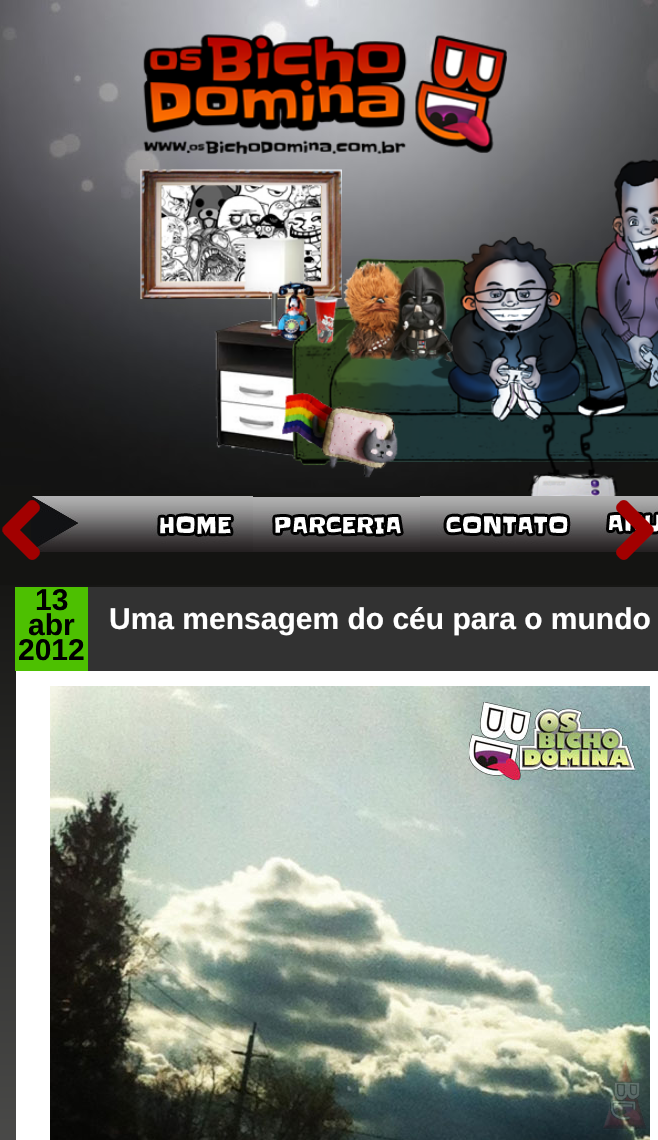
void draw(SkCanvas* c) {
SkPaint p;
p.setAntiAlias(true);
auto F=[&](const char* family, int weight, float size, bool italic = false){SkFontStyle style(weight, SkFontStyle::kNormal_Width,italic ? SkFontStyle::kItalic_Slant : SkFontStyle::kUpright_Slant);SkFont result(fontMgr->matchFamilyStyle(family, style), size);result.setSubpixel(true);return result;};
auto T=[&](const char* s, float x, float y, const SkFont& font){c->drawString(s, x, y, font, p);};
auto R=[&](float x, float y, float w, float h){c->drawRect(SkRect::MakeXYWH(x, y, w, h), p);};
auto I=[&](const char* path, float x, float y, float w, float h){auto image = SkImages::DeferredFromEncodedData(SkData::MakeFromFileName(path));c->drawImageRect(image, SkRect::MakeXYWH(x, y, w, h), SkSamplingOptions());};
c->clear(0xff141412);
I("1.png",0,0,658,493);
I("2.png",140,34,518,462);
I("3.png",31,496,120,56);
I("4.png",151,496,102,56);
I("5.png",253,497,167,55);
I("6.png",420,496,171,56);
I("7.png",591,496,67,56);
{
const SkColor colors[] = {0xff141412,0xffaeaeae};
const float stops[] = {0,1};
const SkPoint ends[] = {{532,558}, {533,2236}};
p.setShader(SkGradientShader::MakeLinear(ends, colors, stops, 2, SkTileMode::kClamp));
p.setAlpha(255);
}
R(0,585,658,555);
I("8.png",2,500,38,60);
I("9.png",616,500,38,60);
p.setShader(nullptr);
p.setColor(0xff4dc001);
R(15,587,73,84);
auto f1 = F("Liberation Sans",700,30);
p.setColor(0xff000000);
T("13",35,610,f1);
T("abr",28,635,f1);
T("2012",18,660,f1);
p.setColor(0xff323232);
R(88,587,570,84);
p.setColor(0xffffffff);
R(16,671,642,469);
T("Uma mensagem do céu para o mundo",109,629,f1);
I("10.png",50,686,600,454);
I("11.png",603,1059,43,71);
}
